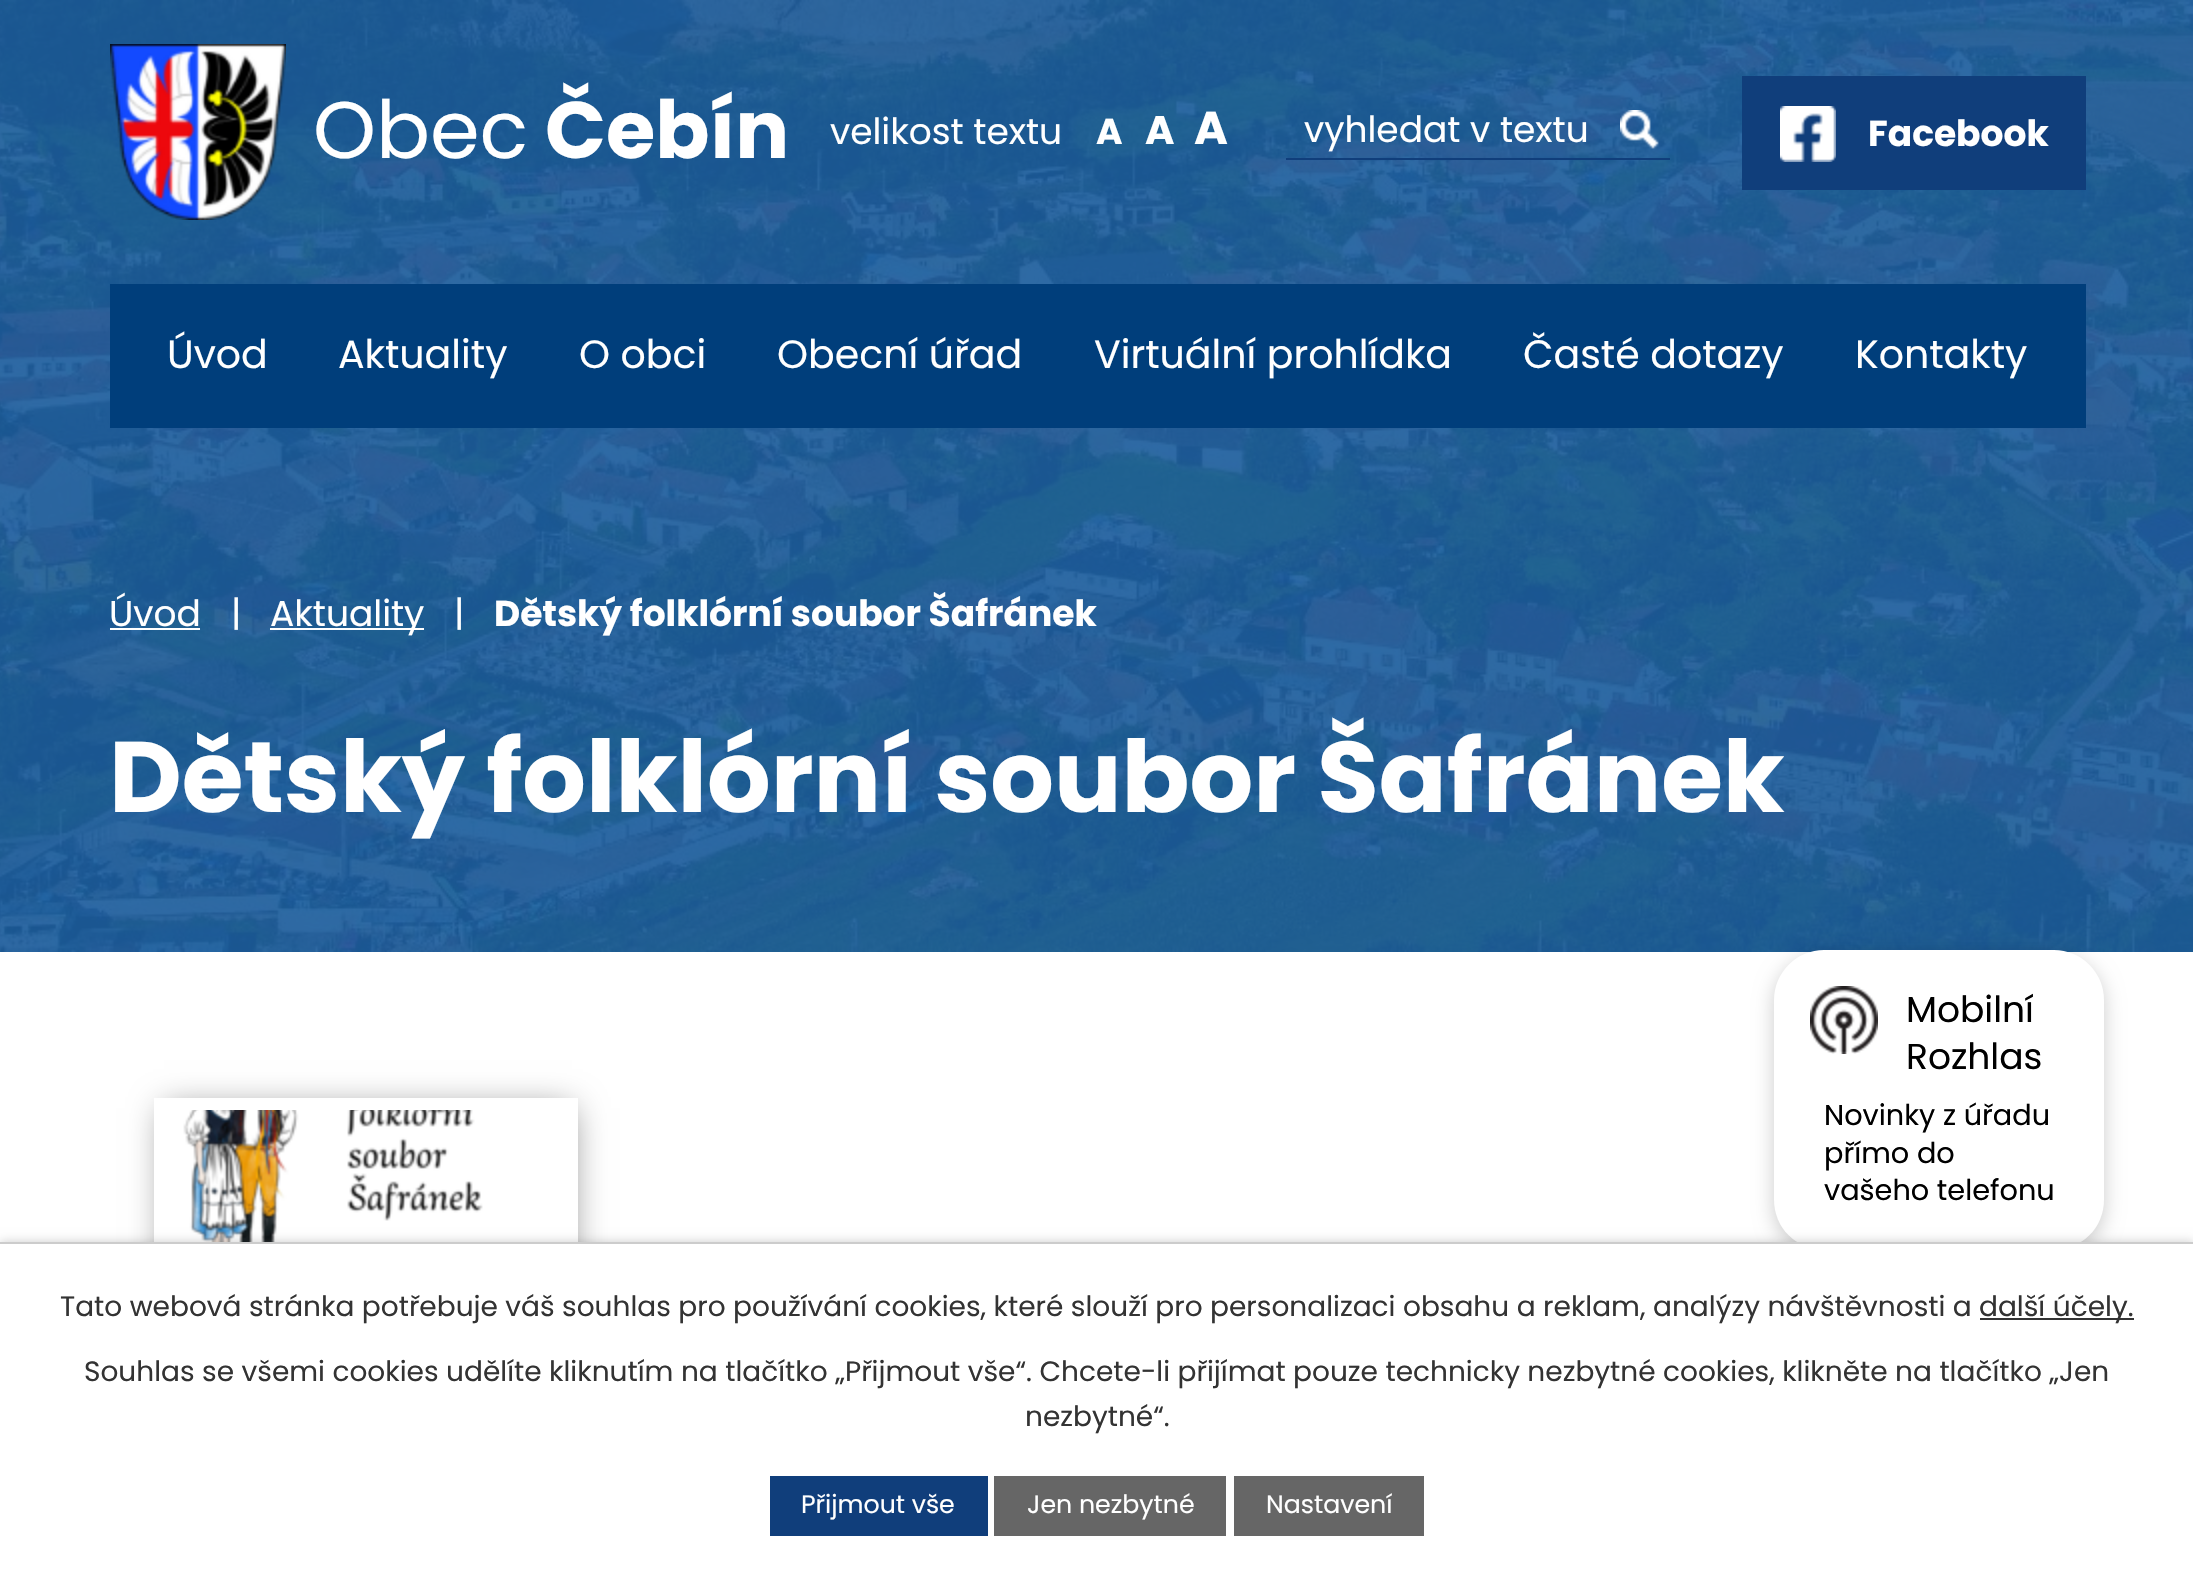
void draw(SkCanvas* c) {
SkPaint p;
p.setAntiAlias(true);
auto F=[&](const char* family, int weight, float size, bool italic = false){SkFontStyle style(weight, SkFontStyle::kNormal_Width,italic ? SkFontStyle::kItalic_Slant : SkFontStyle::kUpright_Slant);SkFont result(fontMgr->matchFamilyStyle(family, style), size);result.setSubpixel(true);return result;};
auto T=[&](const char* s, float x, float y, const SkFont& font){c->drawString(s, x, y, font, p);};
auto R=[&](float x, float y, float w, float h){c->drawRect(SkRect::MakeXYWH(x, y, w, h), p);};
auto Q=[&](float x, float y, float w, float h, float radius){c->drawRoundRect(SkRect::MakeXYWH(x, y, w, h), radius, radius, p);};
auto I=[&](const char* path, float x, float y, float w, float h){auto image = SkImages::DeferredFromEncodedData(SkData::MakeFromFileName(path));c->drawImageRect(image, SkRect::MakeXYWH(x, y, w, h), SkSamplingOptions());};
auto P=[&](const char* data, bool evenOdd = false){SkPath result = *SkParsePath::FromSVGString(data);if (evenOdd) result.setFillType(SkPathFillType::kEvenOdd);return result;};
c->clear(0xffffffff);
I("4.png",0,0,2193,952);
I("1.png",110,44,176,176);
auto f1 = F("Poppins",400,80);
p.setColor(0xffffffff);
T("Obec",313,158,f1);
auto f2 = F("Poppins",700,80);
T("Čebín",545,158,f2);
auto f3 = F("Poppins",400,36);
T("velikost textu",830,144,f3);
auto f4 = F("Poppins",700,36);
T("A",1096,144,f4);
auto f5 = F("Poppins",700,40);
T("A",1145,144,f5);
auto f6 = F("Poppins",700,46);
T("A",1194,144,f6);
p.setColor(0xff103e7b);
R(1286,158,384,2);
p.setColor(0xffffffff);
T("vyhledat v textu",1304,142,f3);
I("2.png",1620,110,39,39);
p.setColor(0xff103e7b);
R(1742,76,344,114);
I("3.png",1780,106,56,56);
p.setColor(0xffffffff);
T("Facebook",1868,146,f4);
p.setColor(0xff003e7b);
R(110,284,1976,144);
auto f7 = F("Poppins",400,39.5);
p.setColor(0xffffffff);
T("Úvod",167,368,f7);
T("Aktuality",338,368,f7);
T("O obci",579,368,f7);
T("Obecní úřad",777,368,f7);
T("Virtuální prohlídka",1094,368,f7);
T("Časté dotazy",1523,368,f7);
T("Kontakty",1855,368,f7);
T("Úvod",109,626,f3);
R(110,628,90,2);
T("|",231,626,f3);
R(270,628,154,2);
T("Aktuality",270,626,f3);
T("|",454,626,f3);
T("Dětský folklórní soubor Šafránek",494,626,f4);
auto f8 = F("Poppins",700,100.1);
T("Dětský folklórní soubor Šafránek",109,812,f8);
c->save();
c->clipPath(P("M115 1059h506v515h-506zm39 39h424v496h-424z",true),true);
p.setColor(0xff888888);
p.setMaskFilter(SkMaskFilter::MakeBlur(kNormal_SkBlurStyle, 16));
c->drawRect(SkRect::MakeXYWH(164,1108,408,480),p);
p.setMaskFilter(nullptr);
c->restore();
I("5.png",166,1110,400,132);
p.setColor(0x33000000);
p.setMaskFilter(SkMaskFilter::MakeBlur(kNormal_SkBlurStyle, 10));
c->drawRoundRect(SkRect::MakeXYWH(1774,956,330,300),50,50,p);
p.setMaskFilter(nullptr);
p.setColor(0xffffffff);
Q(1774,950,330,300,50);
I("6.png",1810,986,68,68);
p.setColor(0xff000000);
T("Mobilní",1906,1022,f3);
T("Rozhlas",1906,1069,f3);
auto f9 = F("Poppins",400,28.75);
T("Novinky z úřadu",1824,1125,f9);
T("přímo do",1824,1163,f9);
T("vašeho telefonu",1824,1200,f9);
p.setColor(0x33000000);
p.setMaskFilter(SkMaskFilter::MakeBlur(kNormal_SkBlurStyle, 5));
c->drawRect(SkRect::MakeXYWH(0,1242,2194,332),p);
p.setMaskFilter(nullptr);
p.setColor(0xffffffff);
R(0,1244,2193,330);
p.setColor(0xffcccccc);
R(0,1242,2193,2);
auto f10 = F("Poppins",400,28);
p.setColor(0xff333333);
T("Tato webová stránka potřebuje váš souhlas pro používání cookies, které slouží pro personalizaci obsahu a reklam, analýzy návštěvnosti a",60,1316,f10);
R(1980,1318,154,2);
T("další účely.",1979,1316,f10);
T("Souhlas se všemi cookies udělíte kliknutím na tlačítko „Přijmout vše“. Chcete-li přijímat pouze technicky nezbytné cookies, klikněte na tlačítko „Jen",84,1381,f10);
T("nezbytné“.",1025,1426,f10);
p.setColor(0xff103e7b);
R(770,1476,218,60);
auto f11 = F("Poppins",400,25.25);
p.setColor(0xffffffff);
T("Přijmout vše",801,1513,f11);
p.setColor(0xff666666);
R(994,1476,232,60);
p.setColor(0xffffffff);
T("Jen nezbytné",1027,1513,f11);
p.setColor(0xff666666);
R(1234,1476,190,60);
p.setColor(0xffffffff);
T("Nastavení",1266,1513,f11);
}
